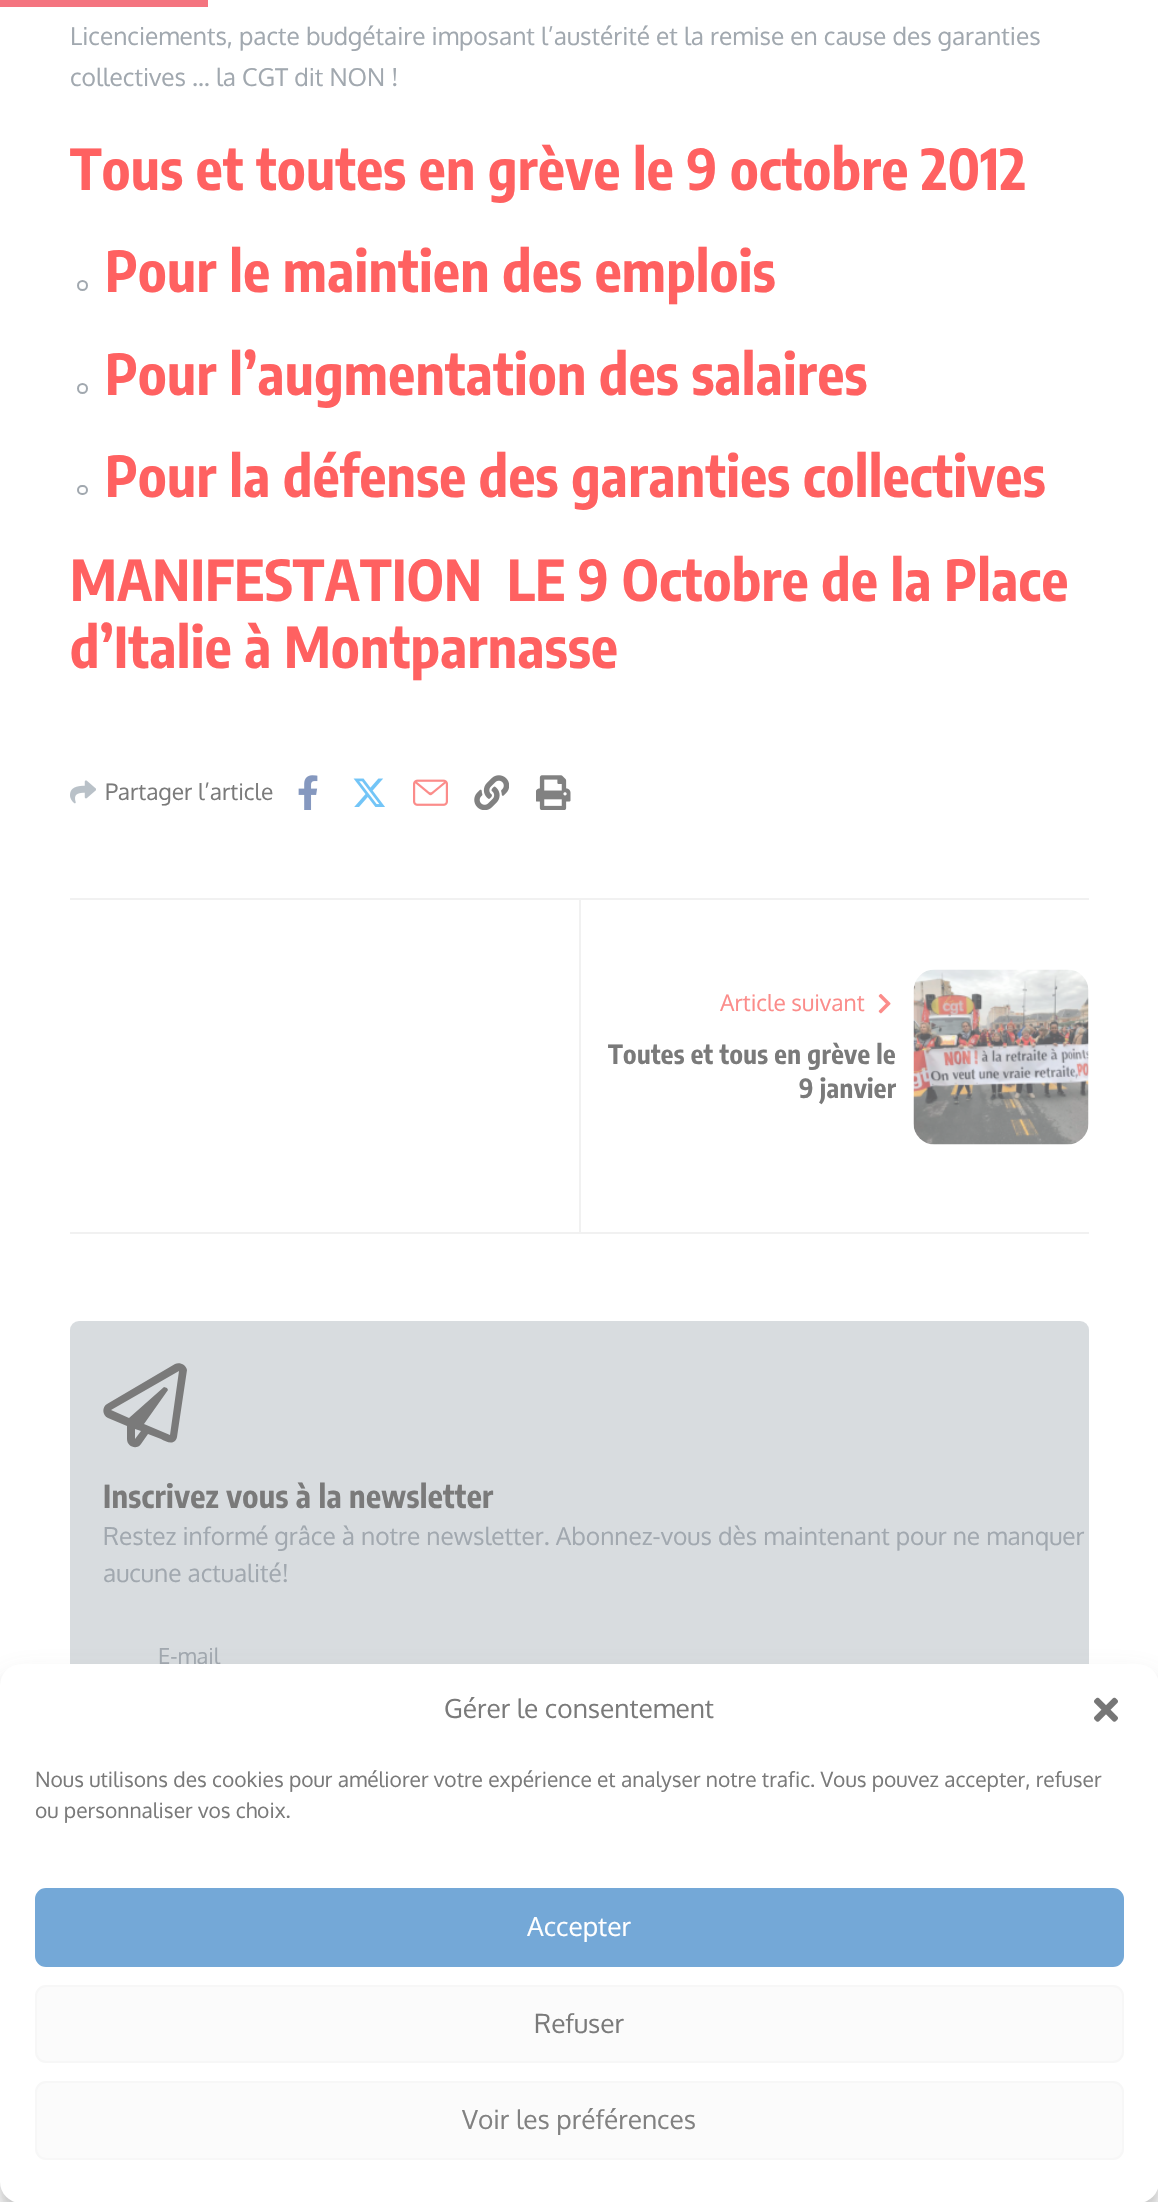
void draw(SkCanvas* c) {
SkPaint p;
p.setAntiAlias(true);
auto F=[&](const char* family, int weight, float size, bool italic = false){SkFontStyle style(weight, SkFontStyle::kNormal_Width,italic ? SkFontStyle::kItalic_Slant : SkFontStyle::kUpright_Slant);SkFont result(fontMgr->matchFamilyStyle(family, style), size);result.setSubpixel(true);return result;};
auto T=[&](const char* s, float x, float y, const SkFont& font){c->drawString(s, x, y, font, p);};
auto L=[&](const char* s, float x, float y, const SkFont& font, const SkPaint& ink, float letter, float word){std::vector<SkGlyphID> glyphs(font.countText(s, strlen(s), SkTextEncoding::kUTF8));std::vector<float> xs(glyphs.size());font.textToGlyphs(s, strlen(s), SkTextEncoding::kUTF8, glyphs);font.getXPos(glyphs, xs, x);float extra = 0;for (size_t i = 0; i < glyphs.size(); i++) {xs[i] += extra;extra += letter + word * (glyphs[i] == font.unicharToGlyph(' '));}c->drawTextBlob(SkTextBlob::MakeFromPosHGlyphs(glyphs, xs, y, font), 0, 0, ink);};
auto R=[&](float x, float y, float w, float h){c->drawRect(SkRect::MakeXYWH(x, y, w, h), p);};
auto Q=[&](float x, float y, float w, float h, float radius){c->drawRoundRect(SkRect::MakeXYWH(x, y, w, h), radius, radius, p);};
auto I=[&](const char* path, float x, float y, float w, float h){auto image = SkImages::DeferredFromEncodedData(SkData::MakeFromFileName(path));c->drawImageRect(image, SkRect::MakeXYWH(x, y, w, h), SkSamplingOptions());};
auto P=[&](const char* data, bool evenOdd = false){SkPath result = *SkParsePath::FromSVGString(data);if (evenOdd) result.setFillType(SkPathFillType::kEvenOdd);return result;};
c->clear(0xffffffff);
p.setColor(0xfff4747f);
R(0,0,208,7);
auto f1 = F("Oxygen",400,24.5);
p.setColor(0xffa1a8af);
T("Licenciements, pacte budgétaire imposant l’austérité et la remise en cause des garanties",70,45,f1);
T("collectives … la CGT dit NON !",70,86,f1);
auto f2 = F("Encode Sans Condensed",700,56);
p.setColor(0xffff6161);
L("Tous et toutes en grève le 9 octobre 2012",70,190,f2,p,.35,0);
p.setStroke(true);
p.setStrokeWidth(2);
p.setColor(0xffa1a8af);
c->drawCircle(82.5,285.5,4.5,p);
p.setStroke(false);
p.setColor(0xffff6161);
L("Pour le maintien des emplois",105,292,f2,p,.35,0);
p.setStroke(true);
p.setColor(0xffa1a8af);
c->drawCircle(82.5,388.5,4.5,p);
p.setStroke(false);
p.setColor(0xffff6161);
L("Pour l’augmentation des salaires",105,395,f2,p,.35,0);
p.setStroke(true);
p.setColor(0xffa1a8af);
c->drawRoundRect(SkRect::MakeXYWH(78,486,9,8),4,4,p);
p.setStroke(false);
p.setColor(0xffff6161);
L("Pour la défense des garanties collectives",105,497,f2,p,.35,0);
L("MANIFESTATION  LE 9 Octobre de la Place",70,601,f2,p,.35,0);
L("d’Italie à Montparnasse",70,668,f2,p,.35,0);
I("1.png",70,780,26,24);
auto f3 = F("Oxygen",400,22.75);
p.setColor(0xff7a7a7a);
T("Partager l’article",105,800,f3);
I("2.png",298,775,20,35);
I("3.png",353,778,32,29);
I("4.png",413,779,35,27);
I("5.png",474,775,35,35);
I("6.png",536,775,35,35);
p.setColor(0xfff1f1f1);
R(70,898,1019,2);
R(70,1232,1019,2);
R(579,900,2,332);
p.setColor(0xfffb8c8a);
T("Article suivant",720,1011,f3);
I("7.png",878,993,13,21);
auto f4 = F("Encode Sans Condensed",700,26.25);
p.setColor(0xff7a7a7a);
L("Toutes et tous en grève le",608,1064,f4,p,.35,0);
L("9 janvier",799,1098,f4,p,.35,0);
I("8.png",913,969,176,176);
p.setColor(0xffd8dcdf);
Q(70,1321,1019,559,9);
p.setColor(0xff7a7a7a);
c->drawPath(P("M175 1364l-68 40c-5 3-5 11 1 14l19 8v13c0 8 10 11 14 5l7-10l13 5c5 3 14 7 16-2l10-67c-1-5-7-8-12-6zm-40 75v-10l6 2zm35-4l-26-11l24-34l-1-2l-3-1l-35 31l-18-8l68-39z"),p);
auto f5 = F("Encode Sans Condensed",700,31.5);
L("Inscrivez vous à la newsletter",103,1508,f5,p,.35,0);
p.setColor(0xffa1a8af);
T("Restez informé grâce à notre newsletter. Abonnez-vous dès maintenant pour ne manquer",103,1545,f1);
T("aucune actualité !",103,1582,f1);
auto f6 = F("Oxygen",400,22);
T("E-mail",158,1664,f6);
p.setColor(0x3b616161);
p.setMaskFilter(SkMaskFilter::MakeBlur(kNormal_SkBlurStyle, 5));
c->drawRoundRect(SkRect::MakeXYWH(0,1675,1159,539),21,21,p);
p.setMaskFilter(nullptr);
p.setColor(0x30616161);
p.setMaskFilter(SkMaskFilter::MakeBlur(kNormal_SkBlurStyle, 17.5));
c->drawRoundRect(SkRect::MakeXYWH(0,1682,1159,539),21,21,p);
p.setMaskFilter(nullptr);
p.setColor(0xffffffff);
Q(0,1664,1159,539,21);
auto f7 = F("Oxygen",400,26.25);
p.setColor(0xff7a7a7a);
T("Gérer le consentement",444,1718,f7);
I("9.png",1094,1697,24,25);
auto f8 = F("Oxygen",400,21);
T("Nous utilisons des cookies pour améliorer votre expérience et analyser notre trafic. Vous pouvez accepter, refuser",35,1787,f8);
T("ou personnaliser vos choix.",35,1818,f8);
p.setColor(0xff74a8d7);
c->drawRoundRect(SkRect::MakeXYWH(36,1889,1087,77),10,10,p);
p.setStroke(true);
c->drawRoundRect(SkRect::MakeXYWH(36,1889,1087,77),10,10,p);
p.setStroke(false);
p.setColor(0xffffffff);
T("Accepter",527,1936,f7);
p.setColor(0xfffbfbfb);
c->drawRoundRect(SkRect::MakeXYWH(36,1986,1087,76),10,10,p);
p.setStroke(true);
p.setColor(0xfff7f7f7);
c->drawRoundRect(SkRect::MakeXYWH(36,1986,1087,76),10,10,p);
p.setStroke(false);
p.setColor(0xff7a7a7a);
T("Refuser",534,2033,f7);
p.setColor(0xfffbfbfb);
c->drawRoundRect(SkRect::MakeXYWH(36,2082,1087,77),10,10,p);
p.setStroke(true);
p.setColor(0xfff7f7f7);
c->drawRoundRect(SkRect::MakeXYWH(36,2082,1087,77),10,10,p);
p.setStroke(false);
p.setColor(0xff818181);
T("Voir les préférences",462,2129,f7);
}
